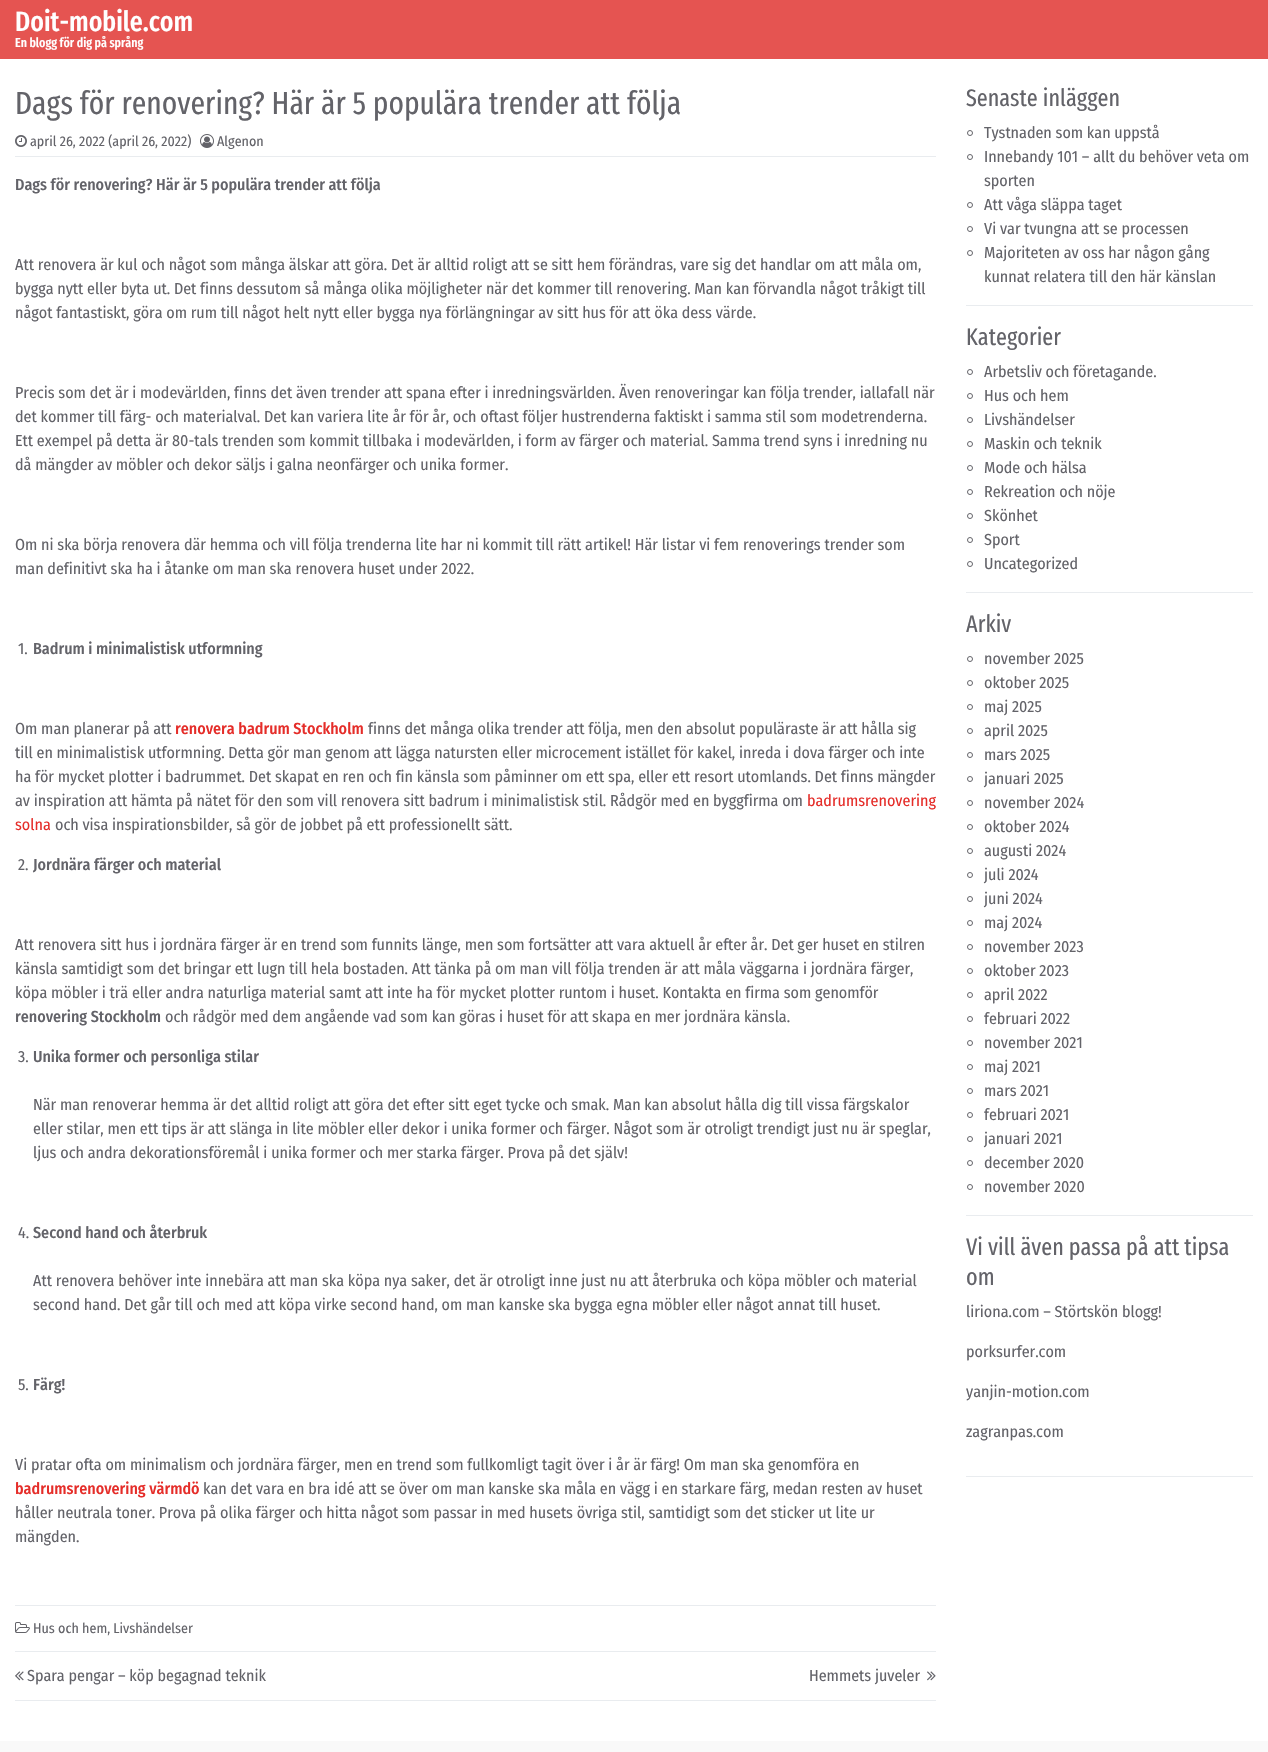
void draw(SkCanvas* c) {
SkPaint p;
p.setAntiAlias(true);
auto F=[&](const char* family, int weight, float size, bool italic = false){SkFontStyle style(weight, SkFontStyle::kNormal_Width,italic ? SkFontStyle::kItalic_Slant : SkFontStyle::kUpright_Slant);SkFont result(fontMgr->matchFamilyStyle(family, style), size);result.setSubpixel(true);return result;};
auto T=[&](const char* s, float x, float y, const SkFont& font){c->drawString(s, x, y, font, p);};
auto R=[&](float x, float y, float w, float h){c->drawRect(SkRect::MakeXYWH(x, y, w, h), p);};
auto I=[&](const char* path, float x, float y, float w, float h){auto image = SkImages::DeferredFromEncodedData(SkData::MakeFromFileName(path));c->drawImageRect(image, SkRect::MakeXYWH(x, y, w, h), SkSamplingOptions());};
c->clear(0xffffffff);
p.setColor(0xffe55451);
R(0,0,1268,59);
auto f1 = F("Fira Sans Extra Condensed",500,28);
p.setColor(0xffffffff);
T("Doit-mobile.com",15,31,f1);
auto f2 = F("Fira Sans Extra Condensed",500,13);
T("En blogg för dig på språng",15,47,f2);
auto f3 = F("Fira Sans Extra Condensed",400,32);
p.setColor(0xff636369);
T("Dags för renovering? Här är 5 populära trender att följa",15,114,f3);
p.setColor(0xffe9ecef);
R(15,156,921,1);
I("1.png",15,135,12,12);
auto f4 = F("Fira Sans Condensed",400,14);
p.setColor(0xff636369);
T("april 26, 2022 (april 26, 2022)",30,146,f4);
I("2.png",200,134,14,14);
T("Algenon",217,146,f4);
auto f5 = F("Fira Sans Condensed",500,16);
T("Dags för renovering? Här är 5 populära trender att följa",15,190,f5);
auto f6 = F("Fira Sans Condensed",400,16);
T("Att renovera är kul och något som många älskar att göra. Det är alltid roligt att se sitt hem förändras, vare sig det handlar om att måla om,",15,270,f6);
T("bygga nytt eller byta ut. Det finns dessutom så många olika möjligheter när det kommer till renovering. Man kan förvandla något tråkigt till",15,294,f6);
T("något fantastiskt, göra om rum till något helt nytt eller bygga nya förlängningar av sitt hus för att öka dess värde.",15,318,f6);
T("Precis som det är i modevärlden, finns det även trender att spana efter i inredningsvärlden. Även renoveringar kan följa trender, iallafall när",15,398,f6);
T("det kommer till färg- och materialval. Det kan variera lite år för år, och oftast följer hustrenderna faktiskt i samma stil som modetrenderna.",15,422,f6);
T("Ett exempel på detta är 80-tals trenden som kommit tillbaka i modevärlden, i form av färger och material. Samma trend syns i inredning nu",15,446,f6);
T("då mängder av möbler och dekor säljs i galna neonfärger och unika former.",15,470,f6);
T("Om ni ska börja renovera där hemma och vill följa trenderna lite har ni kommit till rätt artikel! Här listar vi fem renoverings trender som",15,550,f6);
T("man definitivt ska ha i åtanke om man ska renovera huset under 2022.",15,574,f6);
T("1.",18,654,f6);
T("Badrum i minimalistisk utformning",33,654,f5);
T("Om man planerar på att",15,734,f6);
p.setColor(0xffe52d29);
T("renovera badrum Stockholm",175,734,f5);
p.setColor(0xff636369);
T("finns det många olika trender att följa, men den absolut populäraste är att hålla sig",368,734,f6);
T("till en minimalistisk utformning. Detta gör man genom att lägga natursten eller microcement istället för kakel, inreda i dova färger och inte",15,758,f6);
T("ha för mycket plotter i badrummet. Det skapat en ren och fin känsla som påminner om ett spa, eller ett resort utomlands. Det finns mängder",15,782,f6);
T("av inspiration att hämta på nätet för den som vill renovera sitt badrum i minimalistisk stil. Rådgör med en byggfirma om",15,806,f6);
p.setColor(0xffe52d29);
T("badrumsrenovering",807,806,f6);
T("solna",15,830,f6);
p.setColor(0xff636369);
T("och visa inspirationsbilder, så gör de jobbet på ett professionellt sätt.",55,830,f6);
T("2.",18,870,f6);
T("Jordnära färger och material",33,870,f5);
T("Att renovera sitt hus i jordnära färger är en trend som funnits länge, men som fortsätter att vara aktuell år efter år. Det ger huset en stilren",15,950,f6);
T("känsla samtidigt som det bringar ett lugn till hela bostaden. Att tänka på om man vill följa trenden är att måla väggarna i jordnära färger,",15,974,f6);
T("köpa möbler i trä eller andra naturliga material samt att inte ha för mycket plotter runtom i huset. Kontakta en firma som genomför",15,998,f6);
T("renovering Stockholm",15,1022,f5);
T("och rådgör med dem angående vad som kan göras i huset för att skapa en mer jordnära känsla.",165,1022,f6);
T("3.",18,1062,f6);
T("Unika former och personliga stilar",33,1062,f5);
T("När man renoverar hemma är det alltid roligt att göra det efter sitt eget tycke och smak. Man kan absolut hålla dig till vissa färgskalor",33,1110,f6);
T("eller stilar, men ett tips är att slänga in lite möbler eller dekor i unika former och färger. Något som är otroligt trendigt just nu är speglar,",33,1134,f6);
T("ljus och andra dekorationsföremål i unika former och mer starka färger. Prova på det själv!",33,1158,f6);
T("4.",18,1238,f6);
T("Second hand och återbruk",33,1238,f5);
T("Att renovera behöver inte innebära att man ska köpa nya saker, det är otroligt inne just nu att återbruka och köpa möbler och material",33,1286,f6);
T("second hand. Det går till och med att köpa virke second hand, om man kanske ska bygga egna möbler eller något annat till huset.",33,1310,f6);
T("5.",18,1390,f6);
T("Färg!",33,1390,f5);
T("Vi pratar ofta om minimalism och jordnära färger, men en trend som fullkomligt tagit över i år är färg! Om man ska genomföra en",15,1470,f6);
p.setColor(0xffe52d29);
T("badrumsrenovering värmdö",15,1494,f5);
p.setColor(0xff636369);
T("kan det vara en bra idé att se över om man kanske ska måla en vägg i en starkare färg, medan resten av huset",203,1494,f6);
T("håller neutrala toner. Prova på olika färger och hitta något som passar in med husets övriga stil, samtidigt som det sticker ut lite ur",15,1518,f6);
T("mängden.",15,1542,f6);
p.setColor(0xffe9ecef);
R(15,1605,921,1);
I("3.png",15,1622,15,11);
p.setColor(0xff636369);
T("Hus och hem, Livshändelser",33,1633,f4);
p.setColor(0xffe9ecef);
R(15,1651,921,1);
R(15,1700,921,1);
I("4.png",15,1671,9,10);
p.setColor(0xff636369);
T("Spara pengar – köp begagnad teknik",27,1681,f6);
T("Hemmets juveler",809,1681,f6);
I("5.png",927,1671,9,10);
p.setColor(0xffe9ecef);
R(966,305,287,1);
auto f7 = F("Fira Sans Extra Condensed",400,24);
p.setColor(0xff636369);
T("Senaste inläggen",966,106,f7);
p.setStroke(true);
p.setStrokeWidth(1);
c->drawCircle(970,133,2.5,p);
p.setStroke(false);
T("Tystnaden som kan uppstå",984,138,f6);
p.setStroke(true);
c->drawCircle(970,157,2.5,p);
p.setStroke(false);
T("Innebandy 101 – allt du behöver veta om",984,162,f6);
T("sporten",984,186,f6);
p.setStroke(true);
c->drawCircle(970,205,2.5,p);
p.setStroke(false);
T("Att våga släppa taget",984,210,f6);
p.setStroke(true);
c->drawCircle(970,229,2.5,p);
p.setStroke(false);
T("Vi var tvungna att se processen",984,234,f6);
p.setStroke(true);
c->drawCircle(970,253,2.5,p);
p.setStroke(false);
T("Majoriteten av oss har någon gång",984,258,f6);
T("kunnat relatera till den här känslan",984,282,f6);
p.setColor(0xffe9ecef);
R(966,592,287,1);
p.setColor(0xff636369);
T("Kategorier",966,345,f7);
p.setStroke(true);
c->drawCircle(970,372,2.5,p);
p.setStroke(false);
T("Arbetsliv och företagande.",984,377,f6);
p.setStroke(true);
c->drawCircle(970,396,2.5,p);
p.setStroke(false);
T("Hus och hem",984,401,f6);
p.setStroke(true);
c->drawCircle(970,420,2.5,p);
p.setStroke(false);
T("Livshändelser",984,425,f6);
p.setStroke(true);
c->drawCircle(970,444,2.5,p);
p.setStroke(false);
T("Maskin och teknik",984,449,f6);
p.setStroke(true);
c->drawCircle(970,468,2.5,p);
p.setStroke(false);
T("Mode och hälsa",984,473,f6);
p.setStroke(true);
c->drawCircle(970,492,2.5,p);
p.setStroke(false);
T("Rekreation och nöje",984,497,f6);
p.setStroke(true);
c->drawCircle(970,516,2.5,p);
p.setStroke(false);
T("Skönhet",984,521,f6);
p.setStroke(true);
c->drawCircle(970,540,2.5,p);
p.setStroke(false);
T("Sport",984,545,f6);
p.setStroke(true);
c->drawCircle(970,564,2.5,p);
p.setStroke(false);
T("Uncategorized",984,569,f6);
p.setColor(0xffe9ecef);
R(966,1215,287,1);
p.setColor(0xff636369);
T("Arkiv",966,632,f7);
p.setStroke(true);
c->drawCircle(970,659,2.5,p);
p.setStroke(false);
T("november 2025",984,664,f6);
p.setStroke(true);
c->drawCircle(970,683,2.5,p);
p.setStroke(false);
T("oktober 2025",984,688,f6);
p.setStroke(true);
c->drawCircle(970,707,2.5,p);
p.setStroke(false);
T("maj 2025",984,712,f6);
p.setStroke(true);
c->drawCircle(970,731,2.5,p);
p.setStroke(false);
T("april 2025",984,736,f6);
p.setStroke(true);
c->drawCircle(970,755,2.5,p);
p.setStroke(false);
T("mars 2025",984,760,f6);
p.setStroke(true);
c->drawCircle(970,779,2.5,p);
p.setStroke(false);
T("januari 2025",984,784,f6);
p.setStroke(true);
c->drawCircle(970,803,2.5,p);
p.setStroke(false);
T("november 2024",984,808,f6);
p.setStroke(true);
c->drawCircle(970,827,2.5,p);
p.setStroke(false);
T("oktober 2024",984,832,f6);
p.setStroke(true);
c->drawCircle(970,851,2.5,p);
p.setStroke(false);
T("augusti 2024",984,856,f6);
p.setStroke(true);
c->drawCircle(970,875,2.5,p);
p.setStroke(false);
T("juli 2024",984,880,f6);
p.setStroke(true);
c->drawCircle(970,899,2.5,p);
p.setStroke(false);
T("juni 2024",984,904,f6);
p.setStroke(true);
c->drawCircle(970,923,2.5,p);
p.setStroke(false);
T("maj 2024",984,928,f6);
p.setStroke(true);
c->drawCircle(970,947,2.5,p);
p.setStroke(false);
T("november 2023",984,952,f6);
p.setStroke(true);
c->drawCircle(970,971,2.5,p);
p.setStroke(false);
T("oktober 2023",984,976,f6);
p.setStroke(true);
c->drawCircle(970,995,2.5,p);
p.setStroke(false);
T("april 2022",984,1000,f6);
p.setStroke(true);
c->drawCircle(970,1019,2.5,p);
p.setStroke(false);
T("februari 2022",984,1024,f6);
p.setStroke(true);
c->drawCircle(970,1043,2.5,p);
p.setStroke(false);
T("november 2021",984,1048,f6);
p.setStroke(true);
c->drawCircle(970,1067,2.5,p);
p.setStroke(false);
T("maj 2021",984,1072,f6);
p.setStroke(true);
c->drawCircle(970,1091,2.5,p);
p.setStroke(false);
T("mars 2021",984,1096,f6);
p.setStroke(true);
c->drawCircle(970,1115,2.5,p);
p.setStroke(false);
T("februari 2021",984,1120,f6);
p.setStroke(true);
c->drawCircle(970,1139,2.5,p);
p.setStroke(false);
T("januari 2021",984,1144,f6);
p.setStroke(true);
c->drawCircle(970,1163,2.5,p);
p.setStroke(false);
T("december 2020",984,1168,f6);
p.setStroke(true);
c->drawCircle(970,1187,2.5,p);
p.setStroke(false);
T("november 2020",984,1192,f6);
p.setColor(0xffe9ecef);
R(966,1476,287,1);
p.setColor(0xff636369);
T("Vi vill även passa på att tipsa",966,1255,f7);
T("om",966,1285,f7);
T("liriona.com – Störtskön blogg!",966,1317,f6);
T("porksurfer.com",966,1357,f6);
T("yanjin-motion.com",966,1397,f6);
T("zagranpas.com",966,1437,f6);
p.setColor(0xfff9f9f9);
R(0,1741,1268,11);
}
